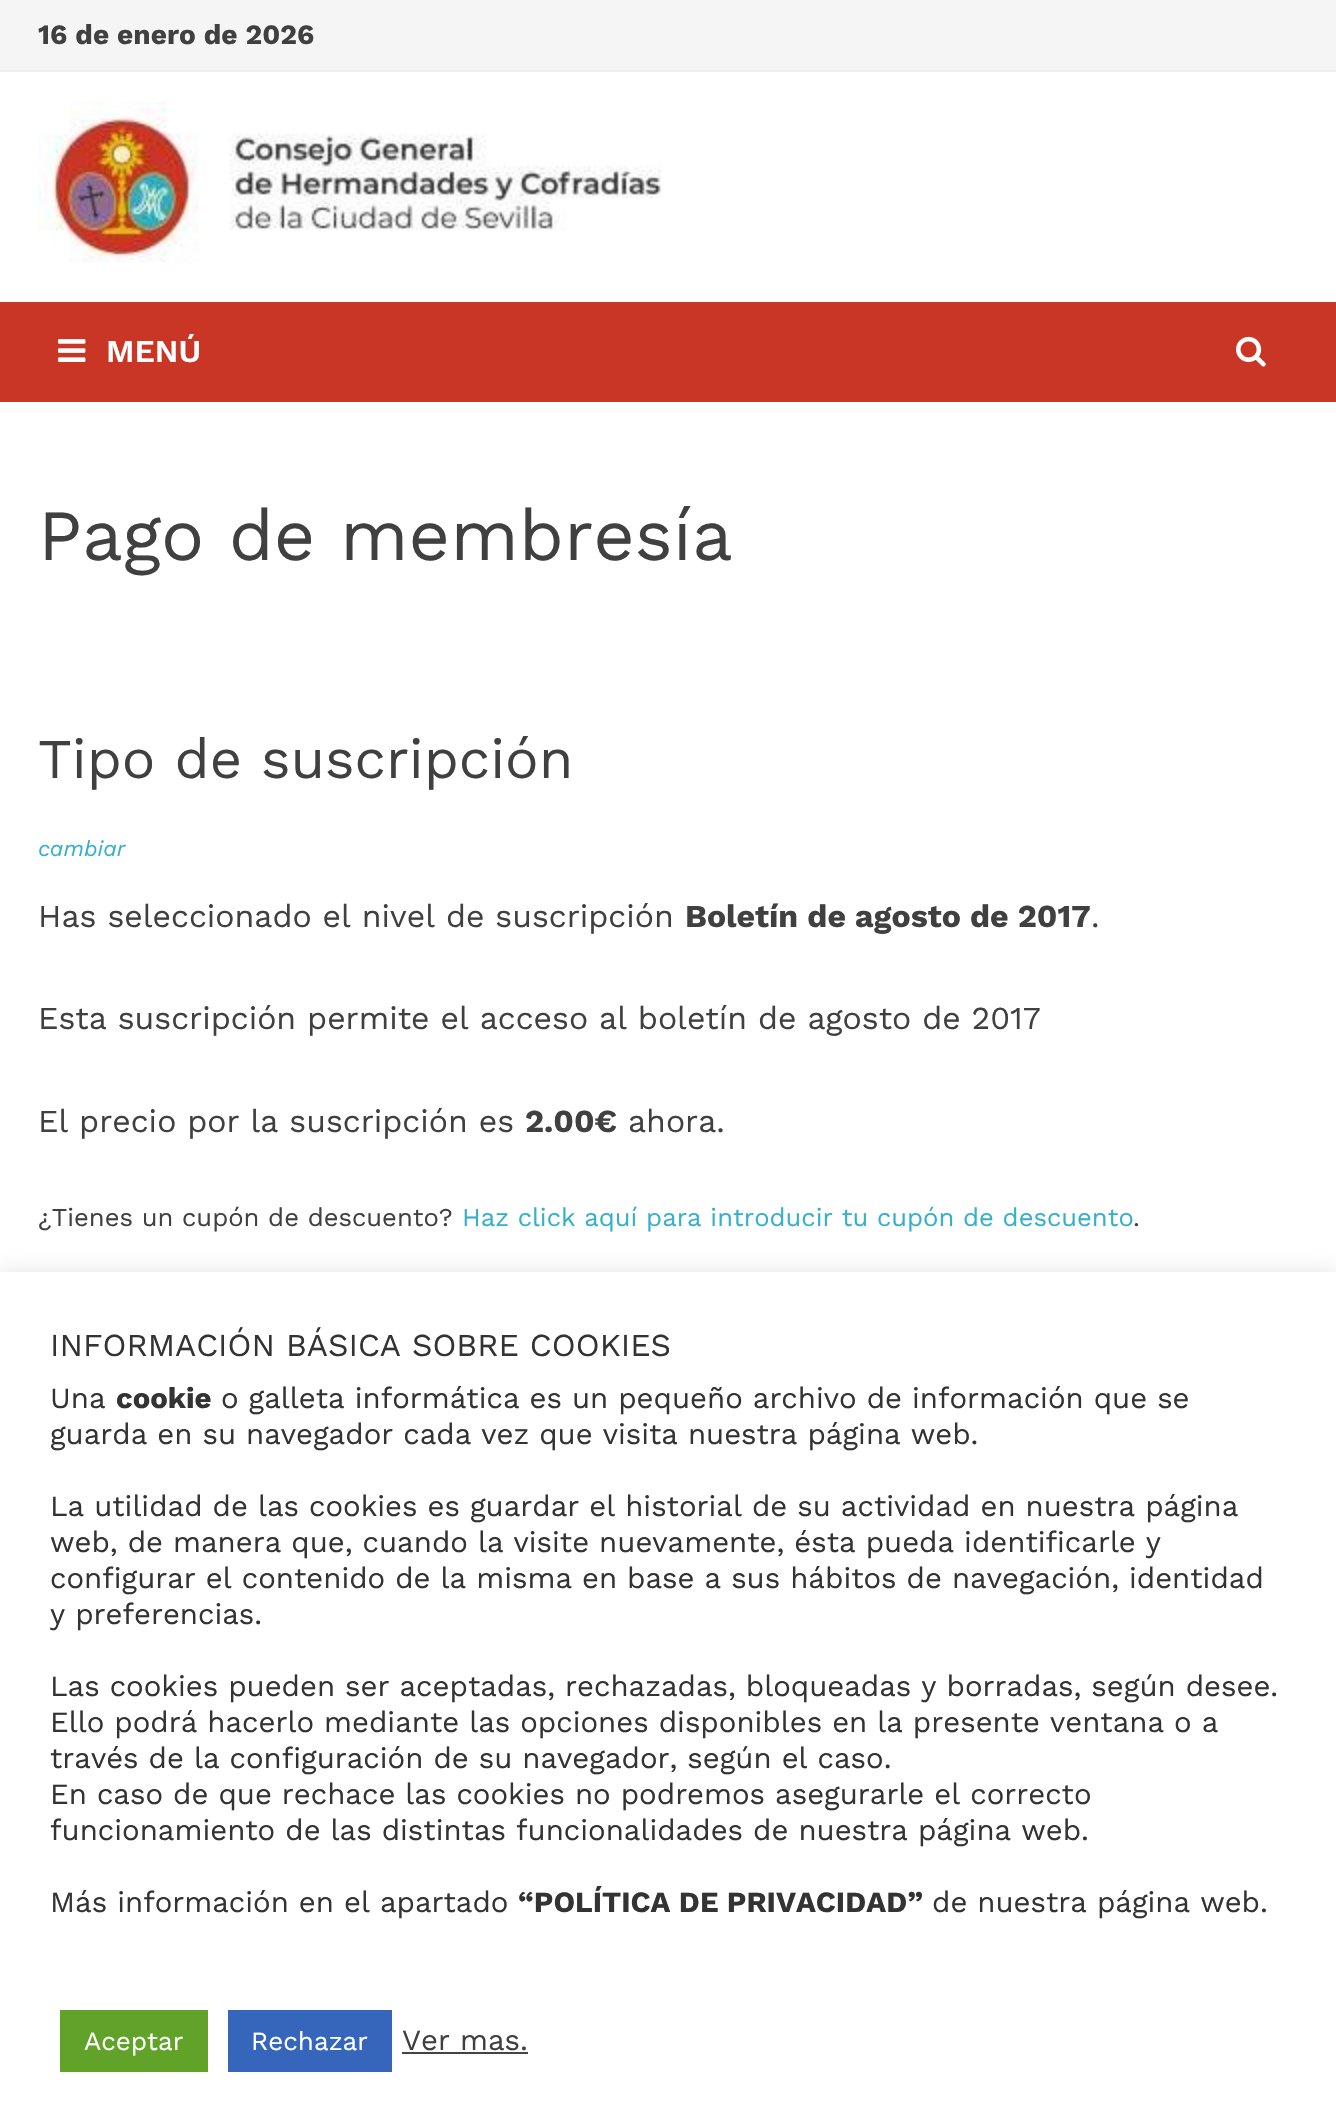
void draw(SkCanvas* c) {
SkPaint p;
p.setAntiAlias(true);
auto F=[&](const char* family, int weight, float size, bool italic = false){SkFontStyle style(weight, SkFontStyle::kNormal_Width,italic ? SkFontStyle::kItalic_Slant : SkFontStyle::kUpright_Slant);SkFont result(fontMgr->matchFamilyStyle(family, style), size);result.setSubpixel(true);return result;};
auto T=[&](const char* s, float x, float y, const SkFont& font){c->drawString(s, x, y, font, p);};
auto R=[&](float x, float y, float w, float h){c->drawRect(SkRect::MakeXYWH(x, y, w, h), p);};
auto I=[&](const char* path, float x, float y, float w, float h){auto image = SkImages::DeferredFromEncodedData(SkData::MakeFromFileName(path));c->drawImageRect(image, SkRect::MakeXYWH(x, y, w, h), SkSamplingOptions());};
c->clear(0xffffffff);
p.setColor(0xfff5f5f5);
R(0,0,1336,70);
p.setColor(0xffeeeeee);
R(0,70,1336,2);
auto f1 = F("Work Sans",700,28);
p.setColor(0xff404040);
T("16 de enero de 2026",38,44,f1);
I("1.png",38,102,624,161);
p.setColor(0xffca3625);
R(0,302,1336,100);
I("2.png",58,339,28,23);
auto f2 = F("Work Sans",600,32);
p.setColor(0xffffffff);
T("MENÚ",106,362,f2);
I("3.png",1236,336,30,31);
auto f3 = F("Work Sans",400,72);
p.setColor(0xff404040);
T("Pago de membresía",38,560,f3);
auto f4 = F("Work Sans",400,56);
T("Tipo de suscripción",38,778,f4);
auto f5 = F("Work Sans",400,22,true);
p.setColor(0xff36b0c9);
T("cambiar",38,856,f5);
auto f6 = F("Work Sans",400,32);
p.setColor(0xff404040);
T("Has seleccionado el nivel de suscripción",38,927,f6);
auto f7 = F("Work Sans",700,32);
T("Boletín de agosto de 2017",685,927,f7);
T(".",1091,927,f6);
T("Esta suscripción permite el acceso al boletín de agosto de 2017",38,1029,f6);
T("El precio por la suscripción es",38,1132,f6);
T("2.00€",525,1132,f7);
T("ahora.",628,1132,f6);
auto f8 = F("Work Sans",400,25.6);
T("¿Tienes un cupón de descuento?",38,1226,f8);
p.setColor(0xff36b0c9);
T("Haz click aquí para introducir tu cupón de descuento",462,1226,f8);
p.setColor(0xff404040);
T(".",1133,1226,f8);
p.setColor(0x4dacabab);
p.setMaskFilter(SkMaskFilter::MakeBlur(kNormal_SkBlurStyle, 10));
c->drawRect(SkRect::MakeXYWH(0,1270,1336,850),p);
p.setMaskFilter(nullptr);
p.setColor(0xffffffff);
R(0,1272,1336,850);
p.setColor(0xff333333);
T("INFORMACIÓN BÁSICA SOBRE COOKIES",50,1356,f6);
auto f9 = F("Work Sans",400,29.35);
T("Una",50,1408,f9);
auto f10 = F("Work Sans",700,29.35);
T("cookie",116,1408,f10);
T("o galleta informática es un pequeño archivo de información que se",221,1408,f9);
T("guarda en su navegador cada vez que visita nuestra página web.",50,1444,f9);
T("La utilidad de las cookies es guardar el historial de su actividad en nuestra página",50,1516,f9);
T("web, de manera que, cuando la visite nuevamente, ésta pueda identificarle y",50,1552,f9);
T("configurar el contenido de la misma en base a sus hábitos de navegación, identidad",50,1588,f9);
T("y preferencias.",50,1624,f9);
T("Las cookies pueden ser aceptadas, rechazadas, bloqueadas y borradas, según desee.",50,1696,f9);
T("Ello podrá hacerlo mediante las opciones disponibles en la presente ventana o a",50,1732,f9);
T("través de la configuración de su navegador, según el caso.",50,1768,f9);
T("En caso de que rechace las cookies no podremos asegurarle el correcto",50,1804,f9);
T("funcionamiento de las distintas funcionalidades de nuestra página web.",50,1840,f9);
T("Más información en el apartado",50,1912,f9);
T("“POLÍTICA DE PRIVACIDAD”",518,1912,f10);
T("de nuestra página web.",932,1912,f9);
p.setColor(0xff61a229);
R(60,2010,148,62);
auto f11 = F("Work Sans",400,26);
p.setColor(0xffffffff);
T("Aceptar",84,2050,f11);
p.setColor(0xff3566bb);
R(228,2010,164,62);
p.setColor(0xffffffff);
T("Rechazar",251,2050,f11);
p.setColor(0xff404040);
T("Ver mas.",402,2050,f9);
p.setColor(0xff444444);
R(402,2052,126,2);
}
